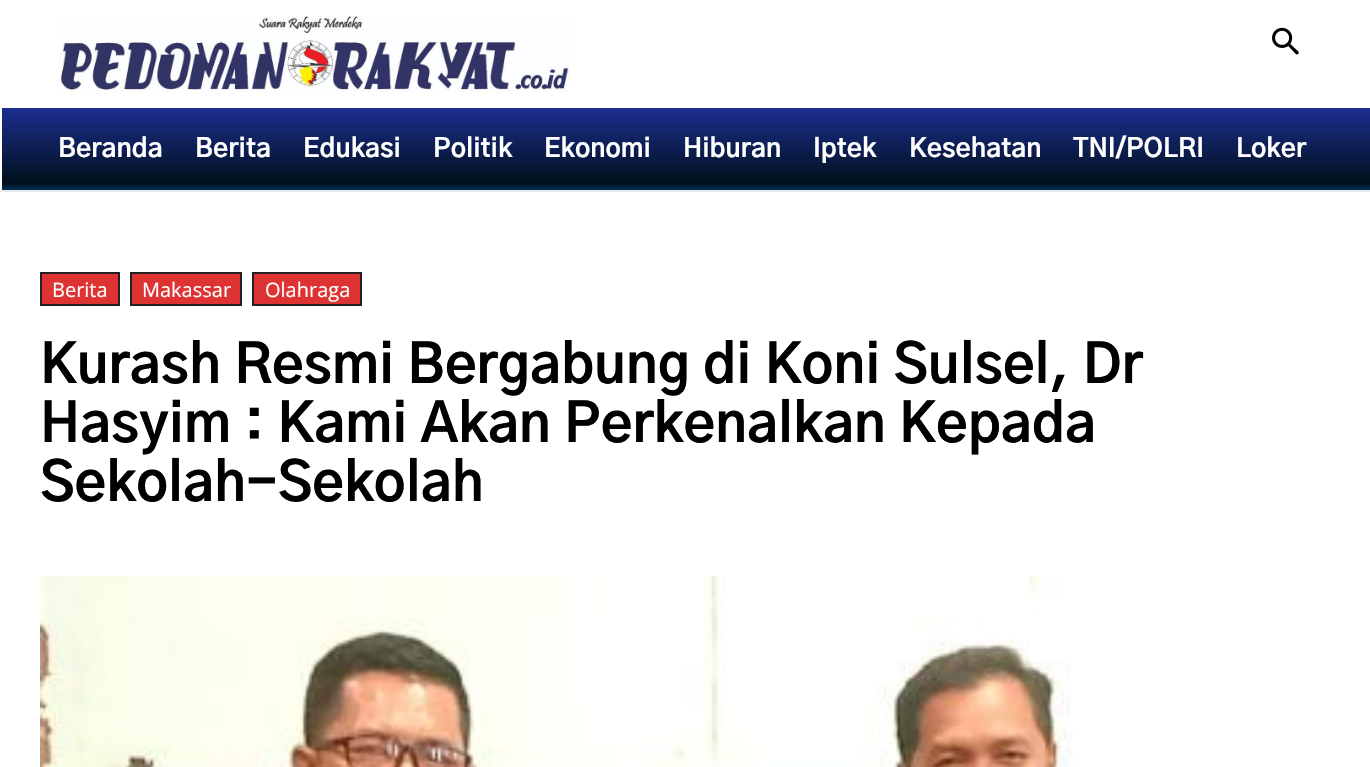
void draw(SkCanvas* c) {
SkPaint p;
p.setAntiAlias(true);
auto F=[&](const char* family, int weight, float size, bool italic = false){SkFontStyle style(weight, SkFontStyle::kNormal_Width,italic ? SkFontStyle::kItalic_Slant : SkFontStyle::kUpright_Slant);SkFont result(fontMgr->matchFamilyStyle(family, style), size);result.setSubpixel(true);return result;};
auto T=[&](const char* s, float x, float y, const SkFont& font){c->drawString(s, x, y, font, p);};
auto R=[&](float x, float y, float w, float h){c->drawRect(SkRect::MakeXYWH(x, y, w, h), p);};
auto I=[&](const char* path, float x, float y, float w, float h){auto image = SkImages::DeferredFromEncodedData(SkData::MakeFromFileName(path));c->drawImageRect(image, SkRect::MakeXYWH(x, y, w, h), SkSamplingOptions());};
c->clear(0xffffffff);
p.setColor(0xffeaeaea);
R(0,190,1370,2);
I("1.png",59,16,511,77);
I("2.png",1272,27,27,28);
{
const SkColor colors[] = {0xff00345b,0xff00101b,0xff1c2e91};
const float stops[] = {0,.08,1};
const SkPoint ends[] = {{686,190}, {686,108}};
p.setShader(SkGradientShader::MakeLinear(ends, colors, stops, 3, SkTileMode::kClamp));
p.setAlpha(255);
}
R(2,108,1368,82);
auto f1 = F("Gothic A1",700,26);
p.setShader(nullptr);
p.setColor(0xffffffff);
T("Beranda",58,157,f1);
T("Berita",195,157,f1);
T("Edukasi",303,157,f1);
T("Politik",433,157,f1);
T("Ekonomi",544,157,f1);
T("Hiburan",683,157,f1);
T("Iptek",813,157,f1);
T("Kesehatan",909,157,f1);
T("TNI/POLRI",1073,157,f1);
T("Loker",1236,157,f1);
p.setColor(0xffdd3333);
c->drawRect(SkRect::MakeXYWH(41,273,78,32),p);
p.setStroke(true);
p.setStrokeWidth(2);
p.setColor(0xff222222);
c->drawRect(SkRect::MakeXYWH(41,273,78,32),p);
auto f2 = F("Open Sans",400,20);
p.setStroke(false);
p.setColor(0xffffffff);
T("Berita",52,297,f2);
p.setColor(0xffdd3333);
c->drawRect(SkRect::MakeXYWH(131,273,110,32),p);
p.setStroke(true);
p.setColor(0xff222222);
c->drawRect(SkRect::MakeXYWH(131,273,110,32),p);
p.setStroke(false);
p.setColor(0xffffffff);
T("Makassar",142,297,f2);
p.setColor(0xffdd3333);
c->drawRect(SkRect::MakeXYWH(253,273,108,32),p);
p.setStroke(true);
p.setColor(0xff222222);
c->drawRect(SkRect::MakeXYWH(253,273,108,32),p);
p.setStroke(false);
p.setColor(0xffffffff);
T("Olahraga",265,297,f2);
auto f3 = F("Gothic A1",700,54);
p.setColor(0xff000000);
T("Kurash Resmi Bergabung di Koni Sulsel, Dr",40,383,f3);
T("Hasyim : Kami Akan Perkenalkan Kepada",40,442,f3);
T("Sekolah-Sekolah",40,501,f3);
I("3.png",40,576,1033,191);
}
